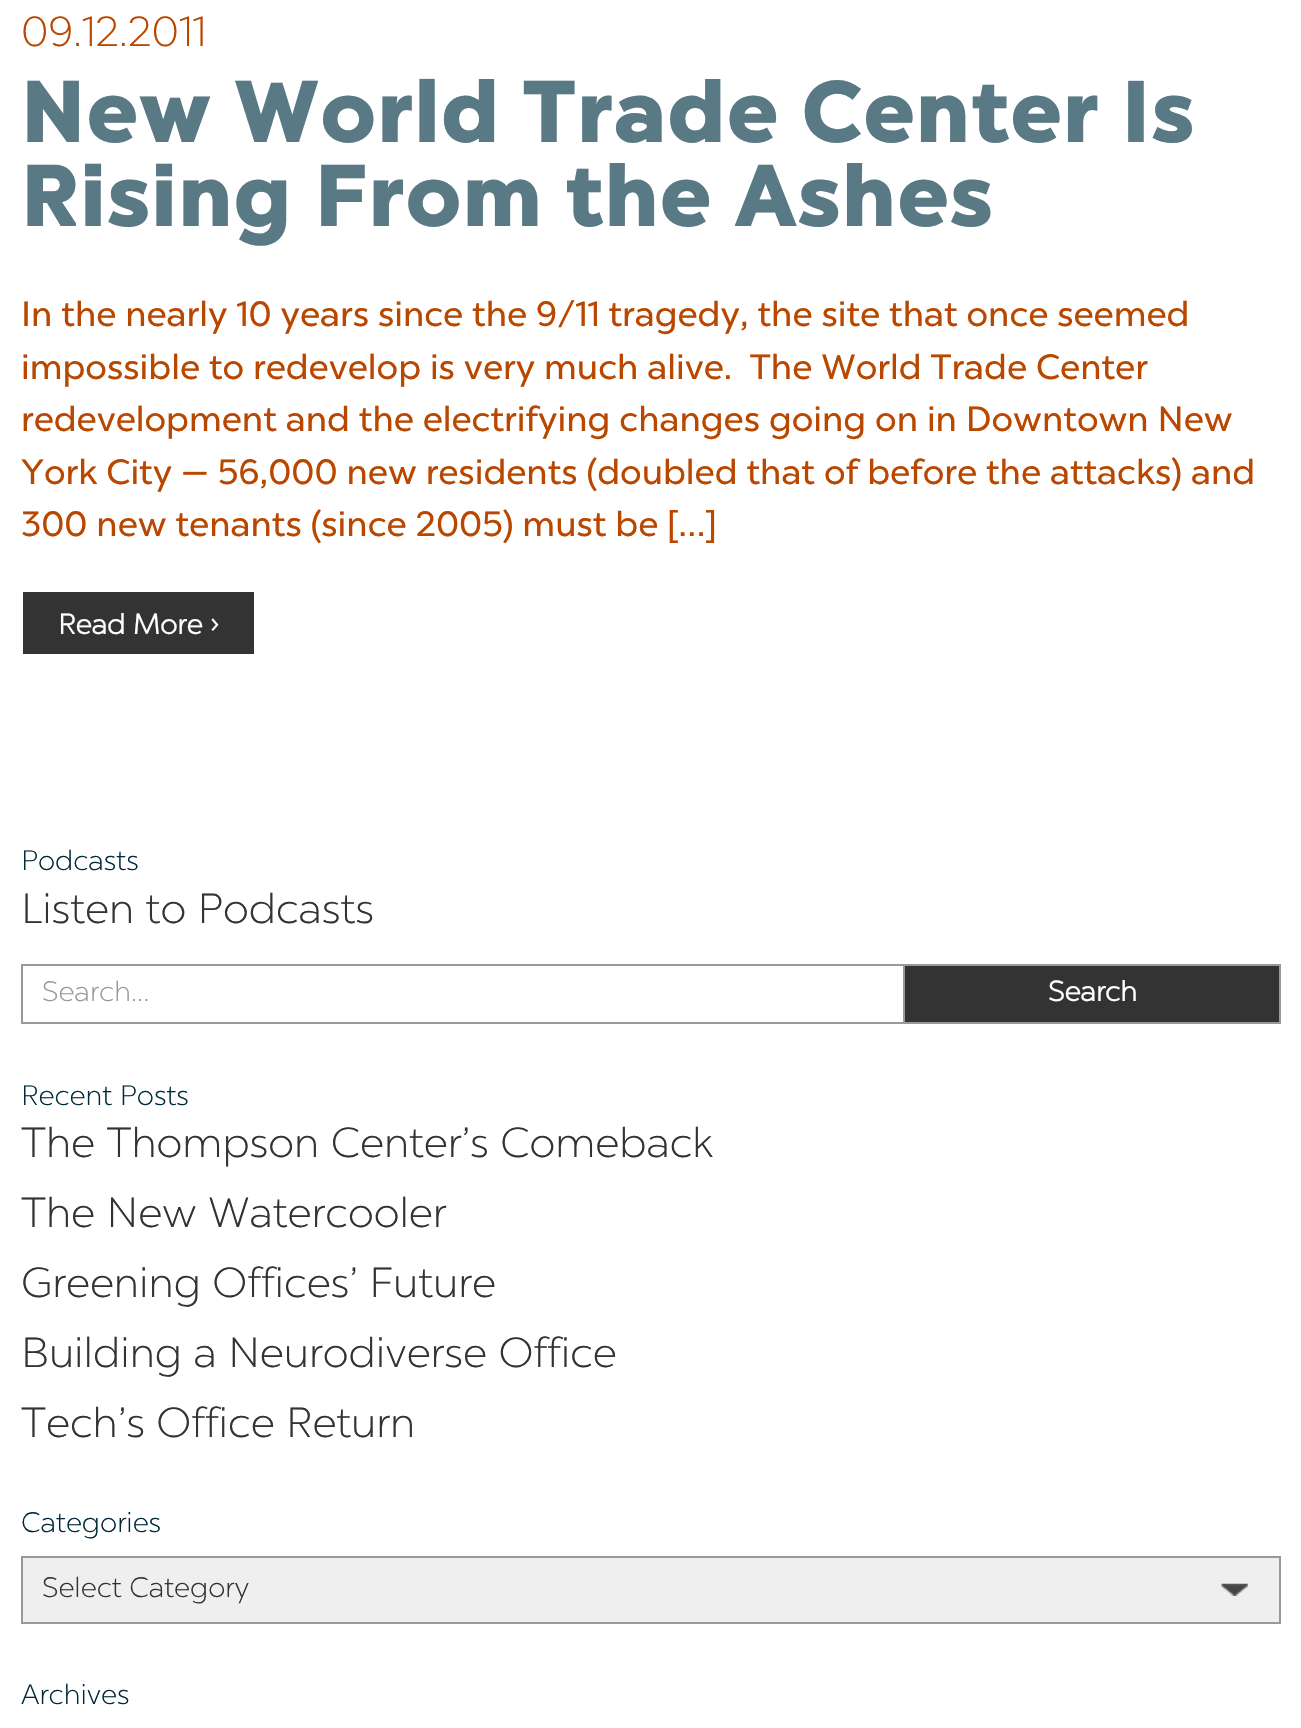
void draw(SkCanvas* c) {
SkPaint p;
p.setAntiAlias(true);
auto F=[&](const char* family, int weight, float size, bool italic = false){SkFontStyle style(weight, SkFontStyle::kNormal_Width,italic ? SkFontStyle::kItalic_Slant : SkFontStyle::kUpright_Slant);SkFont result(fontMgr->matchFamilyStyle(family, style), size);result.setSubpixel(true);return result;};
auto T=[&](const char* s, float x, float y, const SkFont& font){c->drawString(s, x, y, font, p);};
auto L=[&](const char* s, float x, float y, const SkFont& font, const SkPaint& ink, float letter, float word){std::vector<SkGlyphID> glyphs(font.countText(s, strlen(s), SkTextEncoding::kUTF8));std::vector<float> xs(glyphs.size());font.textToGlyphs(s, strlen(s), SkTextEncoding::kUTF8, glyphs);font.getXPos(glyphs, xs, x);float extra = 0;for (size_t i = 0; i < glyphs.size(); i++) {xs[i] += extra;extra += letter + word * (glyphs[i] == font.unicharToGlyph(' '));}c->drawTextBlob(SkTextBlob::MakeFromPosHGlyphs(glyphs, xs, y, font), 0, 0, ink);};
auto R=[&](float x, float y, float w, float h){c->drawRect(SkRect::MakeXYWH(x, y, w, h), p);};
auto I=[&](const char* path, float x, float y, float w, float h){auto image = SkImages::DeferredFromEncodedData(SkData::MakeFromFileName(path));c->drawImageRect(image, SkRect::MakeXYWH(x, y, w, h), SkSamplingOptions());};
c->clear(0xffffffff);
auto f1 = F("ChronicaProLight",400,42);
p.setColor(0xffb94700);
T("09.12.2011",21,46,f1);
auto f2 = F("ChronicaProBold",700,84);
p.setColor(0xff597985);
L("New World Trade Center Is",21,142,f2,p,3.5,0);
L("Rising From the Ashes",21,226,f2,p,3.5,0);
auto f3 = F("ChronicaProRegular",400,35);
p.setColor(0xffb94700);
T("In the nearly 10 years since the 9/11 tragedy, the site that once seemed",21,326,f3);
T("impossible to redevelop is very much alive.  The World Trade Center",21,379,f3);
T("redevelopment and the electrifying changes going on in Downtown New",21,431,f3);
T("York City — 56,000 new residents (doubled that of before the attacks) and",21,484,f3);
T("300 new tenants (since 2005) must be […]",21,536,f3);
p.setColor(0xff333333);
R(23,592,231,62);
auto f4 = F("ChronicaProLight",700,28);
p.setColor(0xffffffff);
T("Read More ›",58,634,f4);
auto f5 = F("ChronicaProLight",400,28);
p.setColor(0xff002a3a);
T("Podcasts",21,870,f5);
p.setColor(0xff333333);
T("Listen to Podcasts",21,923,f1);
p.setColor(0xff999999);
R(21,964,882,2);
R(21,1022,882,2);
R(21,964,2,60);
T("Search…",42,1001,f5);
p.setColor(0xff333333);
c->drawRect(SkRect::MakeXYWH(904,965,376,58),p);
p.setStroke(true);
p.setStrokeWidth(2);
p.setColor(0xff999999);
c->drawRect(SkRect::MakeXYWH(904,965,376,58),p);
p.setStroke(false);
p.setColor(0xffffffff);
T("Search",1048,1001,f4);
p.setColor(0xff002a3a);
T("Recent Posts",21,1105,f5);
p.setColor(0xff333333);
T("The Thompson Center’s Comeback",21,1157,f1);
T("The New Watercooler",21,1227,f1);
T("Greening Offices’ Future",21,1297,f1);
T("Building a Neurodiverse Office",21,1367,f1);
T("Tech’s Office Return",21,1437,f1);
p.setColor(0xff002a3a);
T("Categories",21,1532,f5);
p.setColor(0xffefefef);
R(23,1558,1256,64);
I("1.png",1221,1583,27,13);
p.setStroke(true);
p.setColor(0xff999999);
c->drawRect(SkRect::MakeXYWH(22,1557,1258,66),p);
p.setStroke(false);
p.setColor(0xff333333);
T("Select Category",42,1597,f5);
p.setColor(0xff002a3a);
T("Archives",21,1704,f5);
}
